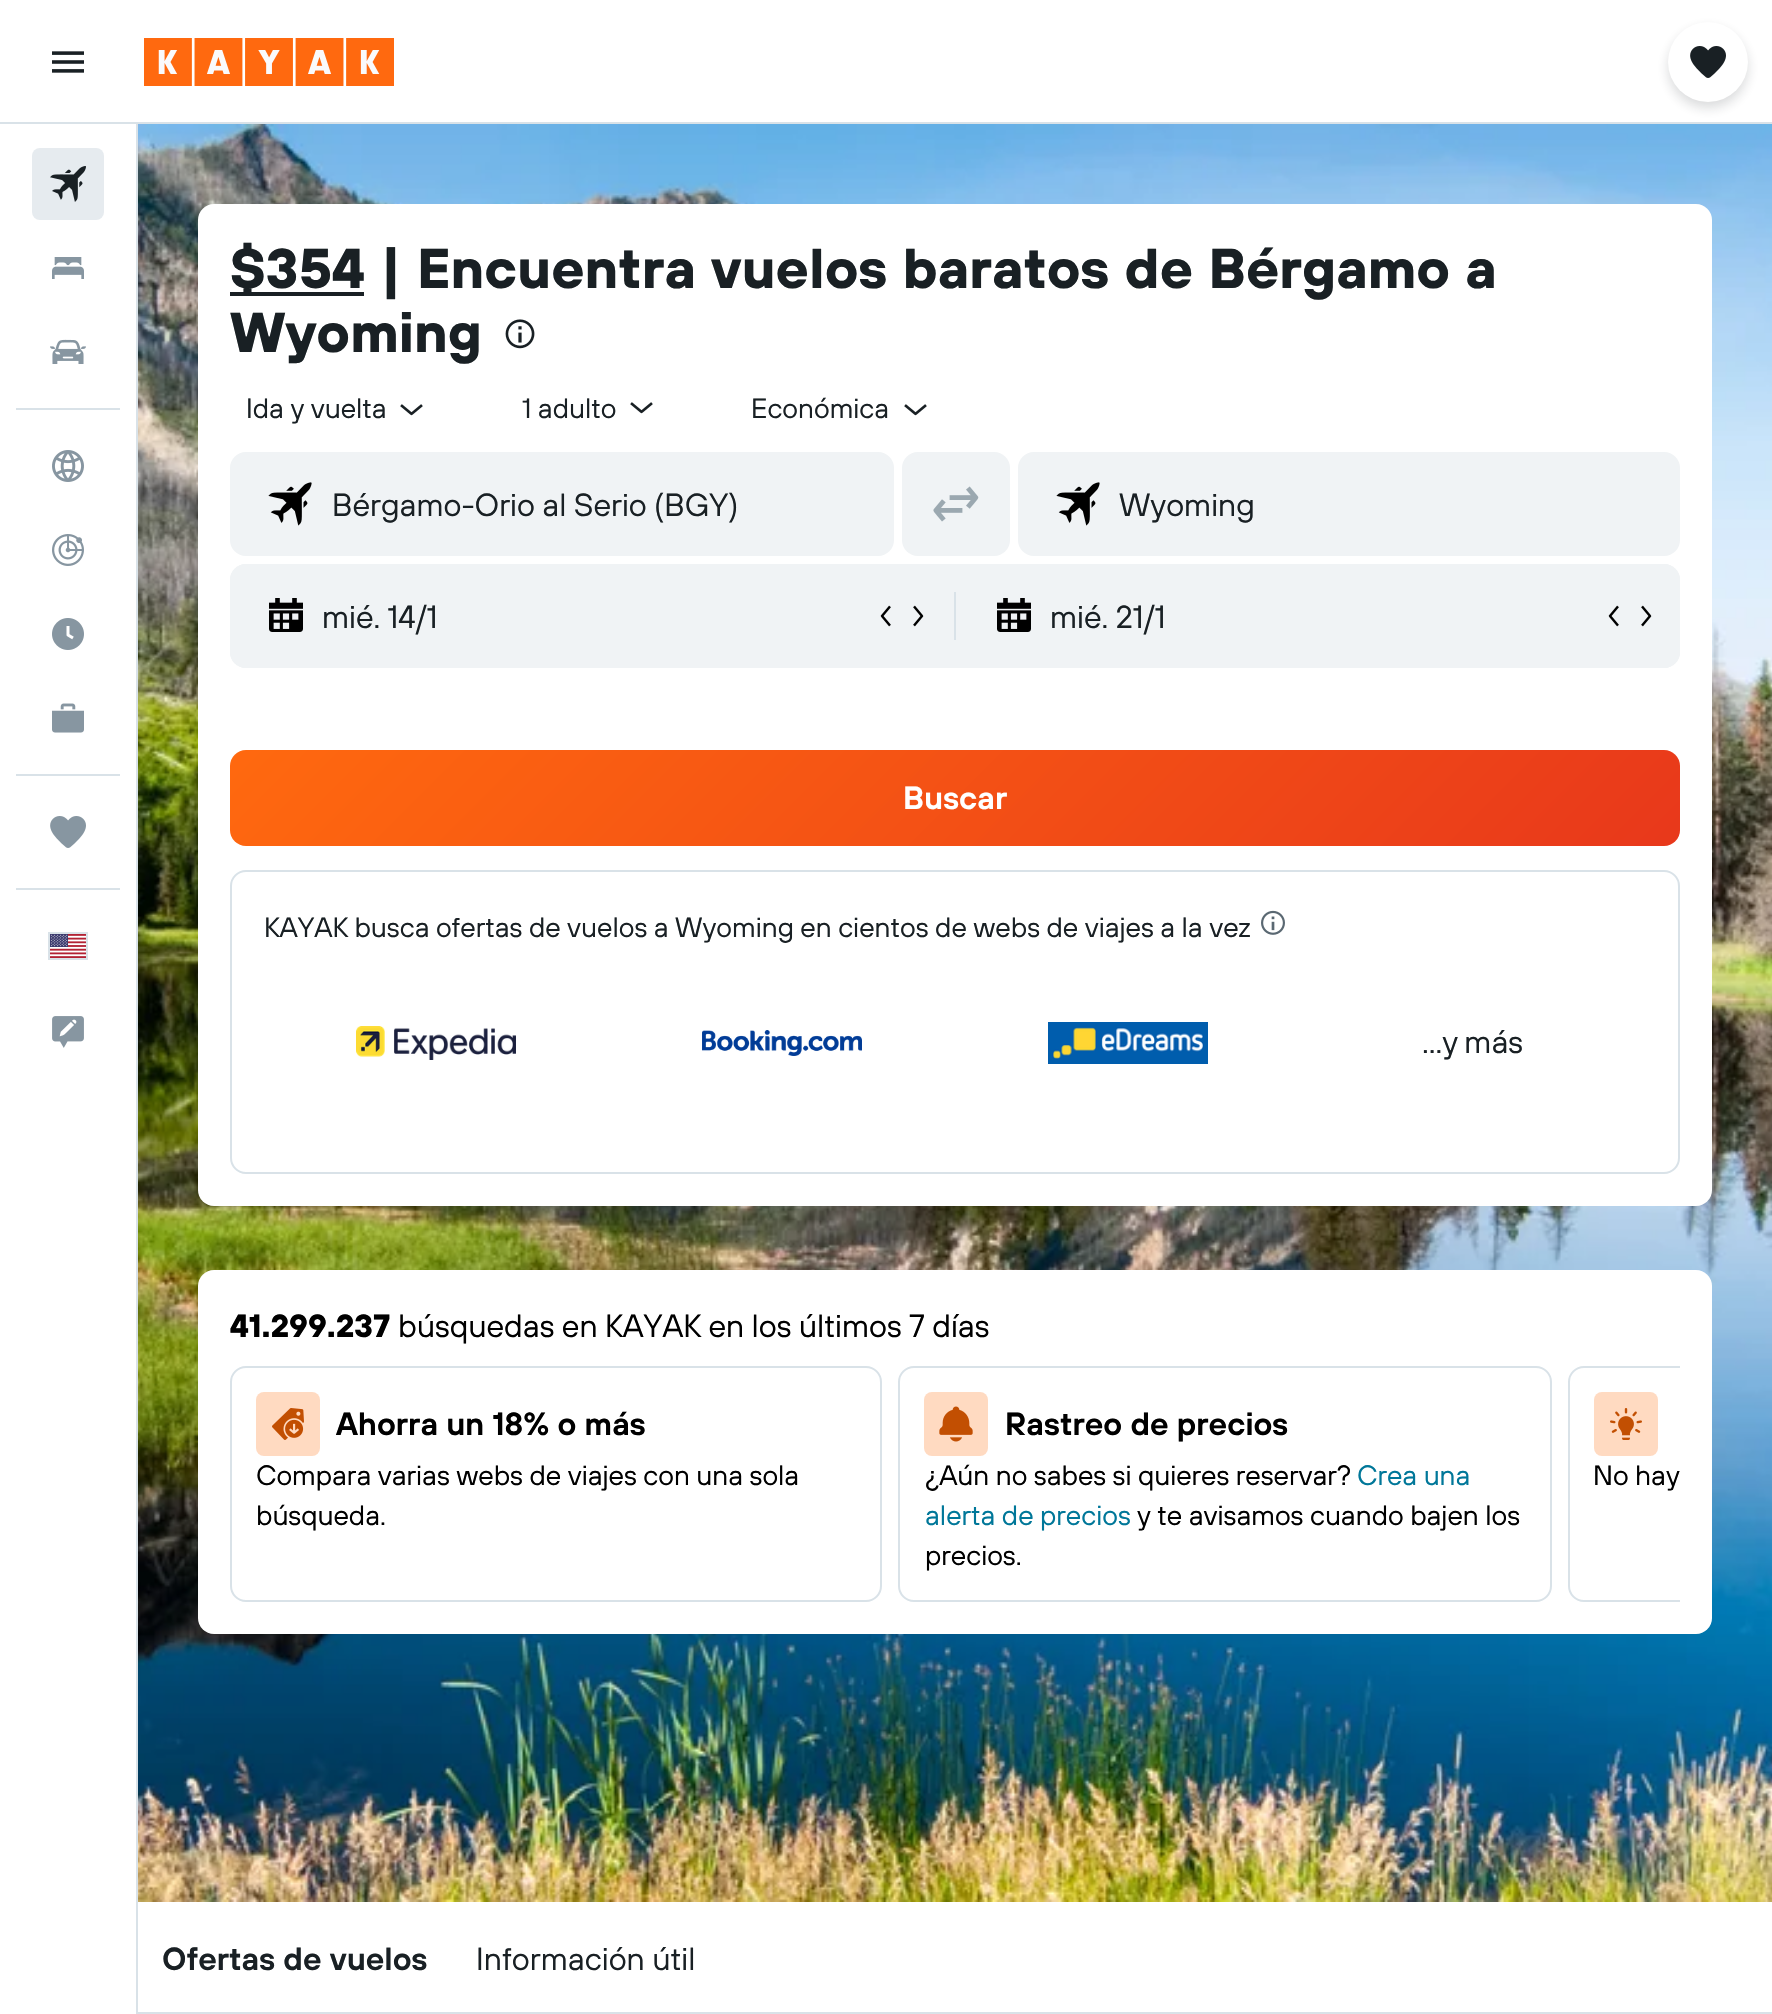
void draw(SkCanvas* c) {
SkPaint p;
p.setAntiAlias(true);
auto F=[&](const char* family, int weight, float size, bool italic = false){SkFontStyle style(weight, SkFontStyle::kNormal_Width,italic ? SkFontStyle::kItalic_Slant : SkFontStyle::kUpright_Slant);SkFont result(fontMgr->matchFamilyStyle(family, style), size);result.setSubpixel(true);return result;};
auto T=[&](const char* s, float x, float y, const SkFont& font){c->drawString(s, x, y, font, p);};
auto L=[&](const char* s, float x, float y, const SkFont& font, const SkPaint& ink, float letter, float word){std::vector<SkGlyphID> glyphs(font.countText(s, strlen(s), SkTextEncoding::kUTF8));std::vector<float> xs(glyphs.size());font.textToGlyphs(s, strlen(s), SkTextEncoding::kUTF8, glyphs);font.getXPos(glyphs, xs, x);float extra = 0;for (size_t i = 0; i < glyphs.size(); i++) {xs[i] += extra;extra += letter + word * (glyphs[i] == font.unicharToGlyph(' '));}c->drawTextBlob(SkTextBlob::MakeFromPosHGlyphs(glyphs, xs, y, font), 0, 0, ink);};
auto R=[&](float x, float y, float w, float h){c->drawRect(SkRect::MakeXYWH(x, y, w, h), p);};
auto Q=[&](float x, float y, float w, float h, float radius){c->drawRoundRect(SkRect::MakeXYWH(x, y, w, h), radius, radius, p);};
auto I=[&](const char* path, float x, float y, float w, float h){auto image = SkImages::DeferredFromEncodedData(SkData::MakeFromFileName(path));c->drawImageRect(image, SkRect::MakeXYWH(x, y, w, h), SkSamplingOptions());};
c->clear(0xffffffff);
p.setColor(0xffd9e2e8);
R(0,122,1772,2);
I("1.png",52,51,32,22);
I("2.png",144,38,250,48);
I("14.png",138,124,1634,1778);
p.setColor(0x29192024);
p.setMaskFilter(SkMaskFilter::MakeBlur(kNormal_SkBlurStyle, 6));
c->drawRoundRect(SkRect::MakeXYWH(1668,28,80,80),40,40,p);
p.setMaskFilter(nullptr);
p.setColor(0xffffffff);
c->drawCircle(1708,62,40,p);
I("3.png",1690,46,36,32);
p.setColor(0xffd9e2e8);
R(136,124,2,1890);
p.setColor(0xffe6ebef);
Q(32,148,72,72,8);
I("4.png",50,166,36,36);
I("5.png",52,257,32,22);
I("6.png",50,339,36,25);
p.setColor(0xffd9e2e8);
R(16,408,104,2);
I("7.png",52,450,32,32);
I("8.png",52,534,32,32);
I("9.png",52,618,32,32);
I("10.png",52,703,32,30);
R(16,774,104,2);
I("11.png",50,816,36,32);
R(16,888,104,2);
p.setStroke(true);
p.setStrokeWidth(2);
c->drawRect(SkRect::MakeXYWH(49,933,38,26),p);
I("12.png",50,934,36,24);
I("13.png",52,1016,32,32);
p.setStroke(false);
p.setColor(0xffffffff);
Q(198,204,1514,1002,16);
p.setColor(0xff192024);
R(230,292,134,4);
auto f1 = F("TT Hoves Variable",700,56);
T("$354 | Encuentra vuelos baratos de Bérgamo a",230,288,f1);
T("Wyoming",230,352,f1);
I("15.png",505,319,30,30);
auto f2 = F("TT Hoves Variable",400,28);
T("Ida y vuelta",246,418,f2);
I("16.png",400,404,23,12);
T("1 adulto",522,418,f2);
I("16.png",630,402,23,12);
T("Económica",751,418,f2);
I("16.png",904,404,23,12);
p.setColor(0xfff0f3f5);
c->drawRoundRect(SkRect::MakeXYWH(231,453,662,102),15,15,p);
p.setStroke(true);
c->drawRoundRect(SkRect::MakeXYWH(231,453,662,102),15,15,p);
I("17.png",268,482,44,44);
auto f3 = F("TT Hoves Variable",400,32);
p.setStroke(false);
p.setColor(0xff192024);
T("Bérgamo-Orio al Serio (BGY)",332,516,f3);
p.setColor(0xfff0f3f5);
Q(902,452,108,104,16);
I("18.png",933,486,46,36);
c->drawRoundRect(SkRect::MakeXYWH(1019,453,660,102),15,15,p);
p.setStroke(true);
c->drawRoundRect(SkRect::MakeXYWH(1019,453,660,102),15,15,p);
I("17.png",1056,482,44,44);
p.setStroke(false);
p.setColor(0xff192024);
T("Wyoming",1119,516,f3);
p.setColor(0xfff0f3f5);
Q(230,564,1450,104,16);
Q(230,564,722,104,16);
I("19.png",269,598,34,34);
p.setColor(0xff192024);
T("mié. 14/1",322,628,f3);
I("20.png",880,605,11,22);
I("21.png",913,605,11,22);
p.setColor(0xffd9e2e8);
R(954,592,2,48);
p.setColor(0xfff0f3f5);
Q(958,564,722,104,16);
I("19.png",997,598,34,34);
p.setColor(0xff192024);
T("mié. 21/1",1050,628,f3);
I("20.png",1608,605,11,22);
I("21.png",1641,605,11,22);
{
const SkColor colors[] = {0xffff690f,0xffe8381b};
const float stops[] = {0,1};
const SkPoint ends[] = {{568,411}, {1342,1185}};
p.setShader(SkGradientShader::MakeLinear(ends, colors, stops, 2, SkTileMode::kClamp));
p.setAlpha(255);
}
Q(230,750,1450,96,16);
auto f4 = F("TT Hoves Variable",600,32);
p.setShader(nullptr);
p.setColor(0xffffffff);
T("Buscar",903,809,f4);
p.setStroke(true);
p.setColor(0xffd9e2e8);
c->drawRoundRect(SkRect::MakeXYWH(231,871,1448,302),15,15,p);
p.setStroke(false);
p.setColor(0xff192024);
T("KAYAK busca ofertas de vuelos a Wyoming en cientos de webs de viajes a la vez",264,937,f2);
I("22.png",1261,910,24,25);
I("23.png",356,1026,160,34);
I("24.png",702,1030,160,26);
I("25.png",1048,1022,160,42);
L("...y más",1422,1053,f3,p,0,-1);
p.setColor(0xffffffff);
Q(198,1270,1514,364,16);
auto f5 = F("TT Hoves Variable",700,32);
p.setColor(0xff000000);
T("41.299.237",230,1337,f5);
T("búsquedas en KAYAK en los últimos 7 días",398,1337,f3);
p.setStroke(true);
p.setColor(0xffd9e2e8);
c->drawRoundRect(SkRect::MakeXYWH(231,1367,650,234),15,15,p);
p.setStroke(false);
p.setColor(0xffffdac1);
Q(256,1392,64,64,8);
I("26.png",272,1408,32,32);
p.setColor(0xff000000);
T("Ahorra un 18% o más",336,1435,f4);
T("Compara varias webs de viajes con una sola",256,1485,f2);
T("búsqueda.",256,1525,f2);
p.setStroke(true);
p.setColor(0xffd9e2e8);
c->drawRoundRect(SkRect::MakeXYWH(899,1367,652,234),15,15,p);
p.setStroke(false);
p.setColor(0xffffdac1);
Q(924,1392,64,64,8);
I("27.png",939,1406,34,36);
p.setColor(0xff000000);
T("Rastreo de precios",1005,1435,f4);
T("¿Aún no sabes si quieres reservar?",925,1485,f2);
p.setColor(0xff007799);
T("Crea una",1357,1485,f2);
T("alerta de precios",925,1525,f2);
p.setColor(0xff000000);
T("y te avisamos cuando bajen los",1137,1525,f2);
T("precios.",925,1565,f2);
c->save();
c->clipRect(SkRect::MakeXYWH(230,1366,1450,236));
p.setStroke(true);
p.setColor(0xffd9e2e8);
c->drawRoundRect(SkRect::MakeXYWH(1569,1367,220,234),15,15,p);
c->restore();
p.setStroke(false);
p.setColor(0xffffdac1);
Q(1594,1392,64,64,8);
I("28.png",1610,1408,32,32);
p.setColor(0xff000000);
T("No hay",1593,1485,f2);
p.setColor(0xffd9e2e8);
R(138,2012,1634,2);
p.setColor(0xff192024);
T("Ofertas de vuelos",162,1970,f4);
T("Información útil",476,1970,f3);
}
